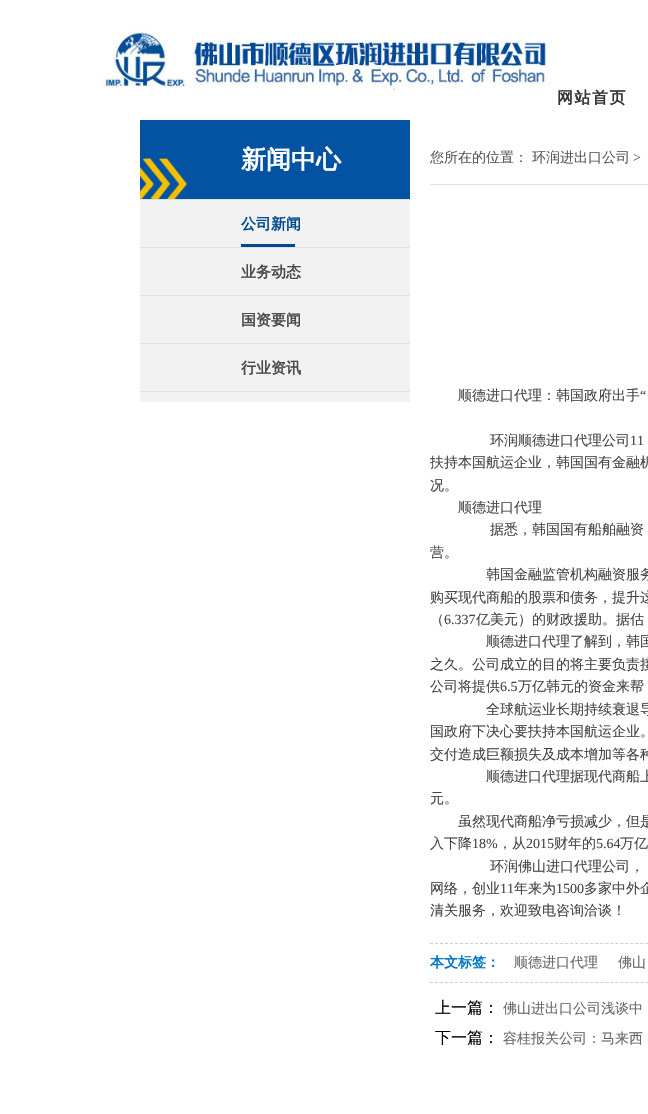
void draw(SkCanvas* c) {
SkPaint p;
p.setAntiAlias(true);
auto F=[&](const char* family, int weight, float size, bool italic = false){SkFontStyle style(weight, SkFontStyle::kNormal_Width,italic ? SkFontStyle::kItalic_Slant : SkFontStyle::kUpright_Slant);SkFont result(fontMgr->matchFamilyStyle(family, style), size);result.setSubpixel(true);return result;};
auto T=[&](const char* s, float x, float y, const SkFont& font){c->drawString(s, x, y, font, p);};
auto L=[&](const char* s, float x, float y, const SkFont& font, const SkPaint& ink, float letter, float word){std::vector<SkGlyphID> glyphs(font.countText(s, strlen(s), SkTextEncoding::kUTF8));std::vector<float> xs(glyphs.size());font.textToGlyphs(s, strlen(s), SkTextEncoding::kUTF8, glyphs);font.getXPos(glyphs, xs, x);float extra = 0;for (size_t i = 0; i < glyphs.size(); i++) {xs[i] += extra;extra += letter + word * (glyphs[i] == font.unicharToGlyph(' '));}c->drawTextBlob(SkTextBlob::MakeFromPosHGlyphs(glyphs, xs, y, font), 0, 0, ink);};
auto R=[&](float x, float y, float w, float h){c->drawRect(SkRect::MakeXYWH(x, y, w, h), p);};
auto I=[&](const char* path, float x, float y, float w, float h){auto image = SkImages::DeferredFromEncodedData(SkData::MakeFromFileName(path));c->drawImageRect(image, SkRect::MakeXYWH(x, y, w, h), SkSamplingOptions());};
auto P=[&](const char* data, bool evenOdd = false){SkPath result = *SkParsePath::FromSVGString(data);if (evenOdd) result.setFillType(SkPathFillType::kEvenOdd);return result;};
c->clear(0xffffffff);
p.setColor(0xfff2f2f2);
R(140,200,270,202);
I("1.png",100,27,449,66);
auto f1 = F("WenQuanYi Zen Hei",700,16);
p.setColor(0xff363636);
L("网站首页",557,103,f1,p,1.5,0);
I("2.png",140,120,270,79);
p.setColor(0xffe0e0e0);
R(140,199,270,1);
auto f2 = F("WenQuanYi Zen Hei",700,25);
p.setColor(0xffffffff);
T("新闻中心",241,168,f2);
p.setColor(0xffe0e0e0);
R(140,247,270,1);
auto f3 = F("WenQuanYi Zen Hei",700,15);
p.setColor(0xff044b91);
T("公司新闻",241,229,f3);
p.setColor(0xff04478a);
R(241,244,54,3);
p.setColor(0xffe0e0e0);
R(140,295,270,1);
p.setColor(0xff4b4b4b);
T("业务动态",241,277,f3);
p.setColor(0xffe0e0e0);
R(140,343,270,1);
p.setColor(0xff4b4b4b);
T("国资要闻",241,325,f3);
p.setColor(0xffe0e0e0);
R(140,391,270,1);
p.setColor(0xff4b4b4b);
T("行业资讯",241,373,f3);
p.setColor(0xffe0e0e0);
R(430,184,218,1);
auto f4 = F("WenQuanYi Zen Hei",500,14);
p.setColor(0xff575757);
T("您所在的位置：",430,162,f4);
T("环润进出口公司",532,162,f4);
auto f5 = F("Liberation Serif",400,14);
T(">",633,162,f5);
p.setColor(0xff444444);
T("顺德进口代理：韩国政府出手",458,400,f4);
T("“",640,400,f5);
T("环润顺德进口代理公司",490,445,f4);
T("11",630,445,f5);
T("扶持本国航运企业，韩国国有金融机",430,467,f4);
T("况。",430,490,f4);
T("顺德进口代理",458,512,f4);
T("据悉，韩国国有船舶融资",490,534,f4);
T("营。",430,557,f4);
T("韩国金融监管机构融资服务",486,579,f4);
T("购买现代商船的股票和债务，提升这",430,602,f4);
T("（",430,624,f4);
T("6.337",444,624,f5);
T("亿美元）的财政援助。据估",476,624,f4);
T("顺德进口代理了解到，韩国",486,646,f4);
T("之久。公司成立的目的将主要负责接",430,669,f4);
T("公司将提供",430,691,f4);
T("6.5",500,691,f5);
T("万亿韩元的资金来帮",518,691,f4);
T("全球航运业长期持续衰退导",486,714,f4);
T("国政府下决心要扶持本国航运企业。",430,736,f4);
T("交付造成巨额损失及成本增加等各种",430,759,f4);
T("顺德进口代理据现代商船上",486,781,f4);
T("元。",430,803,f4);
T("虽然现代商船净亏损减少，但是",458,826,f4);
T("入下降",430,848,f4);
T("18%",472,848,f5);
T("，从",498,848,f4);
T("2015",526,848,f5);
T("财年的",554,848,f4);
T("5.64",596,848,f5);
T("万亿",620,848,f4);
T("环润佛山进口代理公司，",490,871,f4);
T("网络，创业",430,893,f4);
T("11",500,893,f5);
T("年来为",514,893,f4);
T("1500",556,893,f5);
T("多家中外企",584,893,f4);
T("清关服务，欢迎致电咨询洽谈！",430,915,f4);
p.setStroke(true);
p.setStrokeWidth(1);
p.setColor(0xffcdcdcd);
p.setPathEffect(SkDashPathEffect::Make({{3,2.01f}}, 0));
c->drawPath(P("M430 943.5h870"),p);
p.setPathEffect(nullptr);
p.setPathEffect(SkDashPathEffect::Make({{3,2.01f}}, 0));
c->drawPath(P("M430 982.5h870"),p);
p.setPathEffect(nullptr);
auto f6 = F("WenQuanYi Zen Hei",700,14);
p.setStroke(false);
p.setColor(0xff0078c6);
T("本文标签：",430,967,f6);
p.setColor(0xff666666);
T("顺德进口代理",514,967,f4);
T("佛山",618,967,f4);
auto f7 = F("WenQuanYi Zen Hei",500,16);
p.setColor(0xff000000);
T("上一篇：",435,1013,f7);
p.setColor(0xff666666);
T("佛山进出口公司浅谈中",503,1013,f4);
p.setColor(0xff000000);
T("下一篇：",435,1043,f7);
p.setColor(0xff666666);
T("容桂报关公司：马来西",503,1043,f4);
}
